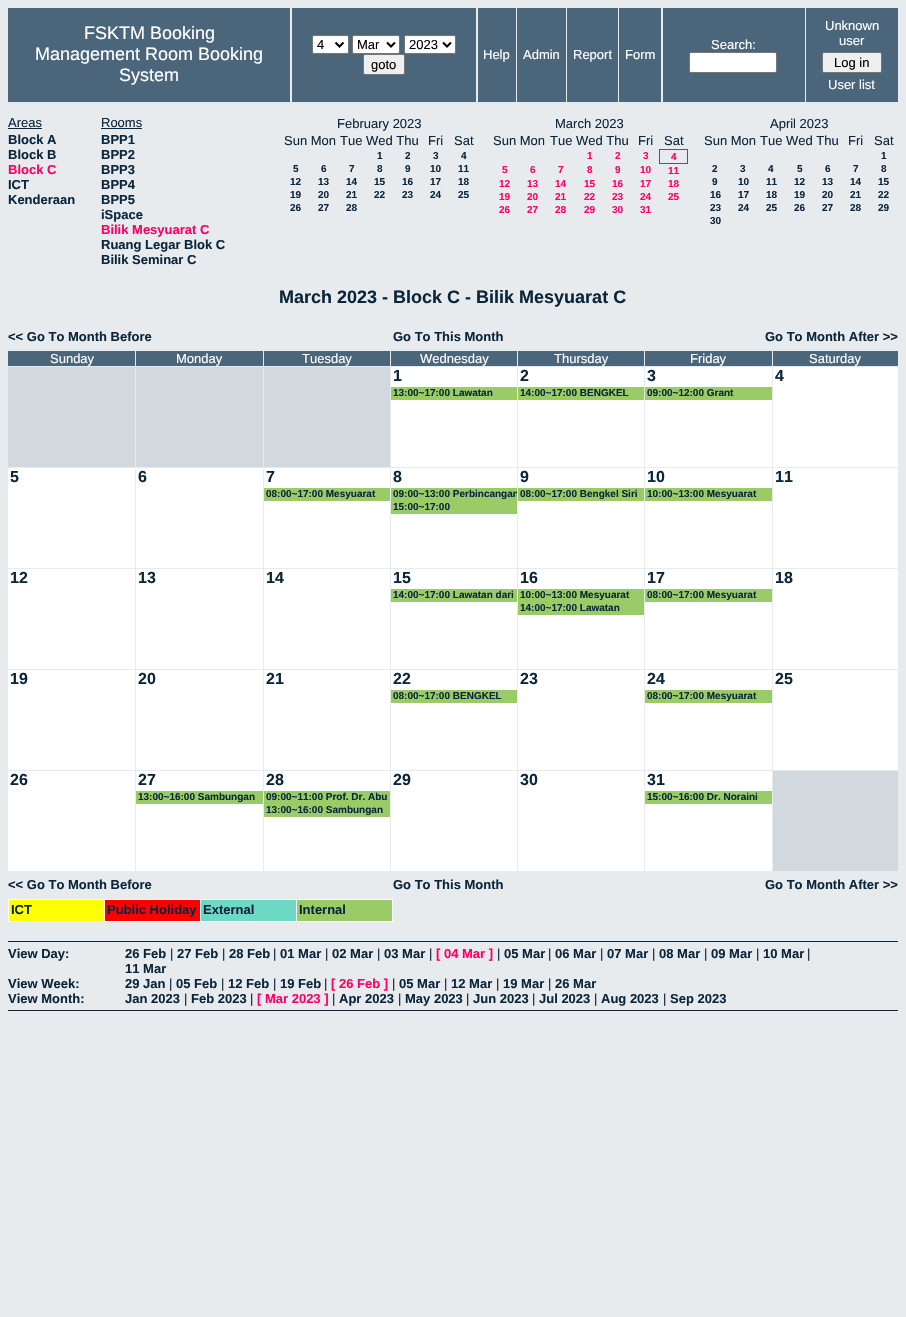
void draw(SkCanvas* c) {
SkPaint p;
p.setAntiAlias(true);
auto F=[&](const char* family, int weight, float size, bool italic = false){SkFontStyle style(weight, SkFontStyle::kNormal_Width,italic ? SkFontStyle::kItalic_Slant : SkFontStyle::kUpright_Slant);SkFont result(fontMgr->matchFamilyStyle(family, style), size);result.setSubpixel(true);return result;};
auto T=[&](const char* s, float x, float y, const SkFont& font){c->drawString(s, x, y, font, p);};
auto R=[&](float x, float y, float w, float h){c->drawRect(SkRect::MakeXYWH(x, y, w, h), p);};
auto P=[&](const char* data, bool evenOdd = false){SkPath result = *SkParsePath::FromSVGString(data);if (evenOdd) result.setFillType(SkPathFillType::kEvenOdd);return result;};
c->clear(0xffe7ebee);
p.setColor(0xff4b667b);
R(8,8,282,94);
auto f1 = F("Liberation Sans",400,18);
p.setColor(0xffffffff);
T("FSKTM Booking",84,39,f1);
T("Management Room Booking",35,60,f1);
T("System",119,81,f1);
p.setColor(0xff4b667b);
R(292,8,184,94);
p.setColor(0xffffffff);
c->drawRoundRect(SkRect::MakeXYWH(312.5,35.5,36,18),1.5,1.5,p);
p.setStroke(true);
p.setStrokeWidth(1);
p.setColor(0xff767676);
c->drawRoundRect(SkRect::MakeXYWH(312.5,35.5,36,18),1.5,1.5,p);
p.setStrokeWidth(2);
p.setColor(0xff000000);
c->drawPath(P("M335.5 42.5l4 4l4-4"),p);
auto f2 = F("Liberation Sans",400,13);
p.setStroke(false);
T("4",317,49,f2);
p.setColor(0xffffffff);
c->drawRoundRect(SkRect::MakeXYWH(352.5,35.5,47,18),1.5,1.5,p);
p.setStroke(true);
p.setStrokeWidth(1);
p.setColor(0xff767676);
c->drawRoundRect(SkRect::MakeXYWH(352.5,35.5,47,18),1.5,1.5,p);
p.setStrokeWidth(2);
p.setColor(0xff000000);
c->drawPath(P("M387 42.5l4 4l4-4"),p);
p.setStroke(false);
T("Mar",357,49,f2);
p.setColor(0xffffffff);
c->drawRoundRect(SkRect::MakeXYWH(404.5,35.5,51,18),1.5,1.5,p);
p.setStroke(true);
p.setStrokeWidth(1);
p.setColor(0xff767676);
c->drawRoundRect(SkRect::MakeXYWH(404.5,35.5,51,18),1.5,1.5,p);
p.setStrokeWidth(2);
p.setColor(0xff000000);
c->drawPath(P("M443 42.5l4 4l4-4"),p);
p.setStroke(false);
T("2023",409,49,f2);
p.setColor(0xffefefef);
c->drawRoundRect(SkRect::MakeXYWH(363.5,54.5,41,20),1.5,1.5,p);
p.setStroke(true);
p.setStrokeWidth(1);
p.setColor(0xff767676);
c->drawRoundRect(SkRect::MakeXYWH(363.5,54.5,41,20),1.5,1.5,p);
p.setStroke(false);
p.setColor(0xff000000);
T("goto",371,69,f2);
p.setColor(0xff4b667b);
R(663,8,142,94);
p.setColor(0xffffffff);
T("Search:",711,49,f2);
c->drawRoundRect(SkRect::MakeXYWH(689.5,52.5,87,20),1.5,1.5,p);
p.setStroke(true);
p.setColor(0xff767676);
c->drawRoundRect(SkRect::MakeXYWH(689.5,52.5,87,20),1.5,1.5,p);
p.setStroke(false);
p.setColor(0xff4b667b);
R(806,8,92,94);
p.setColor(0xffffffff);
T("Unknown",825,30,f2);
T("user",839,45,f2);
p.setColor(0xffefefef);
c->drawRoundRect(SkRect::MakeXYWH(822.5,52.5,59,20),1.5,1.5,p);
p.setStroke(true);
p.setColor(0xff767676);
c->drawRoundRect(SkRect::MakeXYWH(822.5,52.5,59,20),1.5,1.5,p);
p.setStroke(false);
p.setColor(0xff000000);
T("Log in",834,67,f2);
p.setColor(0xffffffff);
T("User list",828,89,f2);
p.setColor(0xff4b667b);
R(478,8,38,94);
p.setColor(0xffffffff);
T("Help",483,59,f2);
p.setColor(0xff4b667b);
R(517,8,49,94);
p.setColor(0xffffffff);
T("Admin",523,59,f2);
p.setColor(0xff4b667b);
R(567,8,51,94);
p.setColor(0xffffffff);
T("Report",573,59,f2);
p.setColor(0xff4b667b);
R(619,8,42,94);
p.setColor(0xffffffff);
T("Form",625,59,f2);
p.setColor(0xff0b263b);
T("Areas",8,127,f2);
R(8,128,34,1);
auto f3 = F("Liberation Sans",700,13);
T("Block A",8,144,f3);
T("Block B",8,159,f3);
p.setColor(0xffff0066);
T("Block C",8,174,f3);
p.setColor(0xff0b263b);
T("ICT",8,189,f3);
T("Kenderaan",8,204,f3);
T("Rooms",101,127,f2);
R(101,128,41,1);
T("BPP1",101,144,f3);
T("BPP2",101,159,f3);
T("BPP3",101,174,f3);
T("BPP4",101,189,f3);
T("BPP5",101,204,f3);
T("iSpace",101,219,f3);
p.setColor(0xffff0066);
T("Bilik Mesyuarat C",101,234,f3);
p.setColor(0xff0b263b);
T("Ruang Legar Blok C",101,249,f3);
T("Bilik Seminar C",101,264,f3);
T("February 2023",337,128,f2);
T("Sun Mon",284,145,f2);
T("Tue Wed Thu",340,145,f2);
T("Fri",428,145,f2);
T("Sat",454,145,f2);
auto f4 = F("Liberation Sans",700,10);
T("1",377,159,f4);
T("2",405,159,f4);
T("3",433,159,f4);
T("4",461,159,f4);
T("5",293,172,f4);
T("6",321,172,f4);
T("7",349,172,f4);
T("8",377,172,f4);
T("9",405,172,f4);
T("10",430,172,f4);
T("11",458,172,f4);
T("12",290,185,f4);
T("13",318,185,f4);
T("14",346,185,f4);
T("15",374,185,f4);
T("16",402,185,f4);
T("17",430,185,f4);
T("18",458,185,f4);
T("19",290,198,f4);
T("20",318,198,f4);
T("21",346,198,f4);
T("22",374,198,f4);
T("23",402,198,f4);
T("24",430,198,f4);
T("25",458,198,f4);
T("26",290,211,f4);
T("27",318,211,f4);
T("28",346,211,f4);
T("March 2023",555,128,f2);
T("Sun Mon",493,145,f2);
T("Tue Wed Thu",550,145,f2);
T("Fri",638,145,f2);
T("Sat",664,145,f2);
p.setColor(0xffff0066);
T("1",587,159,f4);
T("2",615,159,f4);
T("3",643,159,f4);
R(659,149,29,1);
R(687,149,1,15);
R(659,163,29,1);
R(659,149,1,15);
T("4",671,160,f4);
T("5",502,173,f4);
T("6",530,173,f4);
T("7",558,173,f4);
T("8",587,173,f4);
T("9",615,173,f4);
T("10",640,173,f4);
T("11",668,174,f4);
T("12",499,187,f4);
T("13",527,187,f4);
T("14",555,187,f4);
T("15",584,187,f4);
T("16",612,187,f4);
T("17",640,187,f4);
T("18",668,187,f4);
T("19",499,200,f4);
T("20",527,200,f4);
T("21",555,200,f4);
T("22",584,200,f4);
T("23",612,200,f4);
T("24",640,200,f4);
T("25",668,200,f4);
T("26",499,213,f4);
T("27",527,213,f4);
T("28",555,213,f4);
T("29",584,213,f4);
T("30",612,213,f4);
T("31",640,213,f4);
p.setColor(0xff0b263b);
T("April 2023",770,128,f2);
T("Sun Mon",704,145,f2);
T("Tue Wed Thu",760,145,f2);
T("Fri",848,145,f2);
T("Sat",874,145,f2);
T("1",881,159,f4);
T("2",712,172,f4);
T("3",740,172,f4);
T("4",768,172,f4);
T("5",797,172,f4);
T("6",825,172,f4);
T("7",853,172,f4);
T("8",881,172,f4);
T("9",712,185,f4);
T("10",738,185,f4);
T("11",766,185,f4);
T("12",794,185,f4);
T("13",822,185,f4);
T("14",850,185,f4);
T("15",878,185,f4);
T("16",710,198,f4);
T("17",738,198,f4);
T("18",766,198,f4);
T("19",794,198,f4);
T("20",822,198,f4);
T("21",850,198,f4);
T("22",878,198,f4);
T("23",710,211,f4);
T("24",738,211,f4);
T("25",766,211,f4);
T("26",794,211,f4);
T("27",822,211,f4);
T("28",850,211,f4);
T("29",878,211,f4);
T("30",710,224,f4);
auto f5 = F("Liberation Sans",700,18);
T("March 2023 - Block C - Bilik Mesyuarat C",279,303,f5);
T("<< Go To Month Before",8,341,f3);
T("Go To This Month",393,341,f3);
T("Go To Month After >>",765,341,f3);
p.setColor(0xff4b667b);
R(8,351,127,15);
p.setColor(0xffffffff);
T("Sunday",50,363,f2);
p.setColor(0xff4b667b);
R(136,351,127,15);
p.setColor(0xffffffff);
T("Monday",176,363,f2);
p.setColor(0xff4b667b);
R(264,351,126,15);
p.setColor(0xffffffff);
T("Tuesday",302,363,f2);
p.setColor(0xff4b667b);
R(391,351,126,15);
p.setColor(0xffffffff);
T("Wednesday",420,363,f2);
p.setColor(0xff4b667b);
R(518,351,126,15);
p.setColor(0xffffffff);
T("Thursday",554,363,f2);
p.setColor(0xff4b667b);
R(645,351,127,15);
p.setColor(0xffffffff);
T("Friday",690,363,f2);
p.setColor(0xff4b667b);
R(773,351,125,15);
p.setColor(0xffffffff);
T("Saturday",809,363,f2);
p.setColor(0xffd1d9de);
R(8,367,127,100);
R(136,367,127,100);
R(264,367,126,100);
p.setColor(0xffffffff);
R(391,367,126,100);
auto f6 = F("Liberation Sans",700,16);
p.setColor(0xff0b263b);
T("1",393,381,f6);
p.setColor(0xff99cc66);
R(391,387,126,13);
p.setColor(0xff0b263b);
T("13:00~17:00 Lawatan",393,396,f4);
p.setColor(0xffffffff);
R(518,367,126,100);
p.setColor(0xff0b263b);
T("2",520,381,f6);
p.setColor(0xff99cc66);
R(518,387,126,13);
p.setColor(0xff0b263b);
T("14:00~17:00 BENGKEL",520,396,f4);
p.setColor(0xffffffff);
R(645,367,127,100);
p.setColor(0xff0b263b);
T("3",647,381,f6);
p.setColor(0xff99cc66);
R(645,387,127,13);
p.setColor(0xff0b263b);
T("09:00~12:00 Grant",647,396,f4);
p.setColor(0xffffffff);
R(773,367,125,100);
p.setColor(0xff0b263b);
T("4",775,381,f6);
p.setColor(0xffffffff);
R(8,468,127,100);
p.setColor(0xff0b263b);
T("5",10,482,f6);
p.setColor(0xffffffff);
R(136,468,127,100);
p.setColor(0xff0b263b);
T("6",138,482,f6);
p.setColor(0xffffffff);
R(264,468,126,100);
p.setColor(0xff0b263b);
T("7",266,482,f6);
p.setColor(0xff99cc66);
R(264,488,126,13);
p.setColor(0xff0b263b);
T("08:00~17:00 Mesyuarat",266,497,f4);
p.setColor(0xffffffff);
R(391,468,126,100);
p.setColor(0xff0b263b);
T("8",393,482,f6);
p.setColor(0xff99cc66);
R(391,488,126,26);
c->save();
c->clipRect(SkRect::MakeXYWH(391,488,126,13));
p.setColor(0xff0b263b);
T("09:00~13:00 Perbincangan",393,497,f4);
c->restore();
T("15:00~17:00",393,510,f4);
p.setColor(0xffffffff);
R(518,468,126,100);
p.setColor(0xff0b263b);
T("9",520,482,f6);
p.setColor(0xff99cc66);
R(518,488,126,13);
p.setColor(0xff0b263b);
T("08:00~17:00 Bengkel Siri",520,497,f4);
p.setColor(0xffffffff);
R(645,468,127,100);
p.setColor(0xff0b263b);
T("10",647,482,f6);
p.setColor(0xff99cc66);
R(645,488,127,13);
p.setColor(0xff0b263b);
T("10:00~13:00 Mesyuarat",647,497,f4);
p.setColor(0xffffffff);
R(773,468,125,100);
p.setColor(0xff0b263b);
T("11",775,482,f6);
p.setColor(0xffffffff);
R(8,569,127,100);
p.setColor(0xff0b263b);
T("12",10,583,f6);
p.setColor(0xffffffff);
R(136,569,127,100);
p.setColor(0xff0b263b);
T("13",138,583,f6);
p.setColor(0xffffffff);
R(264,569,126,100);
p.setColor(0xff0b263b);
T("14",266,583,f6);
p.setColor(0xffffffff);
R(391,569,126,100);
p.setColor(0xff0b263b);
T("15",393,583,f6);
p.setColor(0xff99cc66);
R(391,589,126,13);
p.setColor(0xff0b263b);
T("14:00~17:00 Lawatan dari",393,598,f4);
p.setColor(0xffffffff);
R(518,569,126,100);
p.setColor(0xff0b263b);
T("16",520,583,f6);
p.setColor(0xff99cc66);
R(518,589,126,26);
p.setColor(0xff0b263b);
T("10:00~13:00 Mesyuarat",520,598,f4);
T("14:00~17:00 Lawatan",520,611,f4);
p.setColor(0xffffffff);
R(645,569,127,100);
p.setColor(0xff0b263b);
T("17",647,583,f6);
p.setColor(0xff99cc66);
R(645,589,127,13);
p.setColor(0xff0b263b);
T("08:00~17:00 Mesyuarat",647,598,f4);
p.setColor(0xffffffff);
R(773,569,125,100);
p.setColor(0xff0b263b);
T("18",775,583,f6);
p.setColor(0xffffffff);
R(8,670,127,100);
p.setColor(0xff0b263b);
T("19",10,684,f6);
p.setColor(0xffffffff);
R(136,670,127,100);
p.setColor(0xff0b263b);
T("20",138,684,f6);
p.setColor(0xffffffff);
R(264,670,126,100);
p.setColor(0xff0b263b);
T("21",266,684,f6);
p.setColor(0xffffffff);
R(391,670,126,100);
p.setColor(0xff0b263b);
T("22",393,684,f6);
p.setColor(0xff99cc66);
R(391,690,126,13);
p.setColor(0xff0b263b);
T("08:00~17:00 BENGKEL",393,699,f4);
p.setColor(0xffffffff);
R(518,670,126,100);
p.setColor(0xff0b263b);
T("23",520,684,f6);
p.setColor(0xffffffff);
R(645,670,127,100);
p.setColor(0xff0b263b);
T("24",647,684,f6);
p.setColor(0xff99cc66);
R(645,690,127,13);
p.setColor(0xff0b263b);
T("08:00~17:00 Mesyuarat",647,699,f4);
p.setColor(0xffffffff);
R(773,670,125,100);
p.setColor(0xff0b263b);
T("25",775,684,f6);
p.setColor(0xffffffff);
R(8,771,127,100);
p.setColor(0xff0b263b);
T("26",10,785,f6);
p.setColor(0xffffffff);
R(136,771,127,100);
p.setColor(0xff0b263b);
T("27",138,785,f6);
p.setColor(0xff99cc66);
R(136,791,127,13);
p.setColor(0xff0b263b);
T("13:00~16:00 Sambungan",138,800,f4);
p.setColor(0xffffffff);
R(264,771,126,100);
p.setColor(0xff0b263b);
T("28",266,785,f6);
p.setColor(0xff99cc66);
R(264,791,126,26);
p.setColor(0xff0b263b);
T("09:00~11:00 Prof. Dr. Abu",266,800,f4);
T("13:00~16:00 Sambungan",266,813,f4);
p.setColor(0xffffffff);
R(391,771,126,100);
p.setColor(0xff0b263b);
T("29",393,785,f6);
p.setColor(0xffffffff);
R(518,771,126,100);
p.setColor(0xff0b263b);
T("30",520,785,f6);
p.setColor(0xffffffff);
R(645,771,127,100);
p.setColor(0xff0b263b);
T("31",647,785,f6);
p.setColor(0xff99cc66);
R(645,791,127,13);
p.setColor(0xff0b263b);
T("15:00~16:00 Dr. Noraini",647,800,f4);
p.setColor(0xffd1d9de);
R(773,771,125,100);
p.setColor(0xff0b263b);
T("<< Go To Month Before",8,889,f3);
T("Go To This Month",393,889,f3);
T("Go To Month After >>",765,889,f3);
p.setColor(0xffffff00);
R(9,900,95,21);
p.setColor(0xffffffff);
R(296,899,97,1);
R(392,899,1,23);
R(296,921,97,1);
R(296,899,1,23);
R(200,899,97,1);
R(200,921,97,1);
R(200,899,1,23);
R(104,899,97,1);
R(104,921,97,1);
R(104,899,1,23);
R(8,899,97,1);
R(8,921,97,1);
R(8,899,1,23);
p.setColor(0xff0b263b);
T("ICT",11,914,f3);
p.setColor(0xffff0000);
R(105,900,95,21);
p.setColor(0xff0b263b);
T("Public Holiday",107,914,f3);
p.setColor(0xff6dd9c4);
R(201,900,95,21);
p.setColor(0xff0b263b);
T("External",203,914,f3);
p.setColor(0xff99cc66);
R(297,900,95,21);
p.setColor(0xff0b263b);
T("Internal",299,914,f3);
R(8,941,890,1);
R(8,1010,890,1);
T("View Day:",8,958,f3);
T("26 Feb",125,958,f3);
T("|",170,958,f2);
T("27 Feb",177,958,f3);
T("|",222,958,f2);
T("28 Feb",229,958,f3);
T("|",273,958,f2);
T("01 Mar",280,958,f3);
T("|",325,958,f2);
T("02 Mar",332,958,f3);
T("|",377,958,f2);
T("03 Mar",384,958,f3);
T("|",429,958,f2);
p.setColor(0xffff0066);
T("[ 04 Mar ]",436,958,f3);
p.setColor(0xff0b263b);
T("|",497,958,f2);
T("05 Mar",504,958,f3);
T("|",548,958,f2);
T("06 Mar",555,958,f3);
T("|",600,958,f2);
T("07 Mar",607,958,f3);
T("|",652,958,f2);
T("08 Mar",659,958,f3);
T("|",704,958,f2);
T("09 Mar",711,958,f3);
T("|",756,958,f2);
T("10 Mar",763,958,f3);
T("|",807,958,f2);
T("11 Mar",125,973,f3);
T("View Week:",8,988,f3);
T("29 Jan",125,988,f3);
T("|",169,988,f2);
T("05 Feb",176,988,f3);
T("|",221,988,f2);
T("12 Feb",228,988,f3);
T("|",273,988,f2);
T("19 Feb",280,988,f3);
T("|",324,988,f2);
p.setColor(0xffff0066);
T("[ 26 Feb ]",331,988,f3);
p.setColor(0xff0b263b);
T("|",392,988,f2);
T("05 Mar",399,988,f3);
T("|",444,988,f2);
T("12 Mar",451,988,f3);
T("|",496,988,f2);
T("19 Mar",503,988,f3);
T("|",548,988,f2);
T("26 Mar",555,988,f3);
T("View Month:",8,1003,f3);
T("Jan 2023",125,1003,f3);
T("|",184,1003,f2);
T("Feb 2023",191,1003,f3);
T("|",250,1003,f2);
p.setColor(0xffff0066);
T("[ Mar 2023 ]",257,1003,f3);
p.setColor(0xff0b263b);
T("|",332,1003,f2);
T("Apr 2023",339,1003,f3);
T("|",398,1003,f2);
T("May 2023",405,1003,f3);
T("|",466,1003,f2);
T("Jun 2023",473,1003,f3);
T("|",532,1003,f2);
T("Jul 2023",539,1003,f3);
T("|",594,1003,f2);
T("Aug 2023",601,1003,f3);
T("|",663,1003,f2);
T("Sep 2023",670,1003,f3);
}
